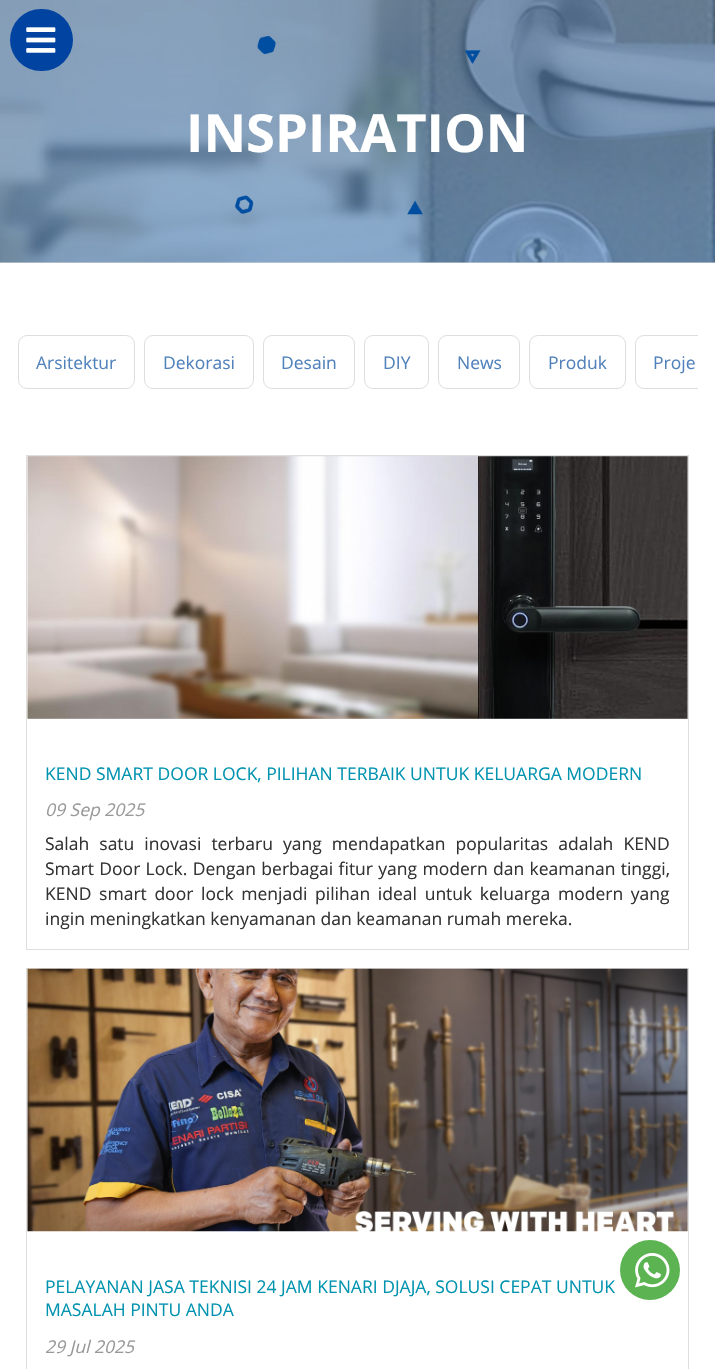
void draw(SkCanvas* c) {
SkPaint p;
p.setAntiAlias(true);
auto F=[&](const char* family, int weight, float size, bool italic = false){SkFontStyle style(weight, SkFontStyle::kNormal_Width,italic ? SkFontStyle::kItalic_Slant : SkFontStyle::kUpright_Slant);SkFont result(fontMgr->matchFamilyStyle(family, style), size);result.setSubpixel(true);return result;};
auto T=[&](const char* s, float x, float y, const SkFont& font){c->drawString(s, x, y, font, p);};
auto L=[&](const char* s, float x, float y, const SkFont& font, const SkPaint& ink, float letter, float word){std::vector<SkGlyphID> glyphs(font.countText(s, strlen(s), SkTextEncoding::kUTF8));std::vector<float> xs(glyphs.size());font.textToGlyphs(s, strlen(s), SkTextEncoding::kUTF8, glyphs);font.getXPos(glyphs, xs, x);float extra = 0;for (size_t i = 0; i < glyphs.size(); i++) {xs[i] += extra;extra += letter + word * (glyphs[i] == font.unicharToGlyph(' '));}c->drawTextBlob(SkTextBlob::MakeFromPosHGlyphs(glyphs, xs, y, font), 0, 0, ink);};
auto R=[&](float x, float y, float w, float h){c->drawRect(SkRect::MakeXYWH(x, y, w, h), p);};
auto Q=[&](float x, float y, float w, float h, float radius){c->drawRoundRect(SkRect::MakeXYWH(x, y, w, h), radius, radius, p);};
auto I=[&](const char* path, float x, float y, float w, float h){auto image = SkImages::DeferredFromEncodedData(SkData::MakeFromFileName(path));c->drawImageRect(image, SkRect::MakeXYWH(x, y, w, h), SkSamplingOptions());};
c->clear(0xffffffff);
p.setColor(0xffdedede);
R(0,262,715,1);
I("2.png",0,0,715,263);
p.setColor(0xff0043a1);
Q(10,9,63,62,31);
I("1.png",26,27,30,26);
auto f1 = F("Open Sans",700,52.5);
p.setColor(0xffffffff);
T("INSPIRATION",186,152,f1);
p.setStroke(true);
p.setStrokeWidth(1);
p.setColor(0xffdedede);
c->drawRoundRect(SkRect::MakeXYWH(18.5,335.5,116,53),8.5,8.5,p);
auto f2 = F("Open Sans",400,17.5);
p.setStroke(false);
p.setColor(0xff5182bb);
T("Arsitektur",36,369,f2);
p.setStroke(true);
p.setColor(0xffdedede);
c->drawRoundRect(SkRect::MakeXYWH(144.5,335.5,109,53),8.5,8.5,p);
p.setStroke(false);
p.setColor(0xff5182bb);
T("Dekorasi",163,369,f2);
p.setStroke(true);
p.setColor(0xffdedede);
c->drawRoundRect(SkRect::MakeXYWH(263.5,335.5,91,53),8.5,8.5,p);
p.setStroke(false);
p.setColor(0xff5182bb);
T("Desain",281,369,f2);
p.setStroke(true);
p.setColor(0xffdedede);
c->drawRoundRect(SkRect::MakeXYWH(364.5,335.5,64,53),8.5,8.5,p);
p.setStroke(false);
p.setColor(0xff5182bb);
T("DIY",383,369,f2);
p.setStroke(true);
p.setColor(0xffdedede);
c->drawRoundRect(SkRect::MakeXYWH(438.5,335.5,81,53),8.5,8.5,p);
p.setStroke(false);
p.setColor(0xff5182bb);
T("News",457,369,f2);
p.setStroke(true);
p.setColor(0xffdedede);
c->drawRoundRect(SkRect::MakeXYWH(529.5,335.5,96,53),8.5,8.5,p);
p.setStroke(false);
p.setColor(0xff5182bb);
T("Produk",548,369,f2);
c->save();
c->clipRect(SkRect::MakeXYWH(18,333,680,78));
p.setStroke(true);
p.setColor(0xffdedede);
c->drawRoundRect(SkRect::MakeXYWH(635.5,335.5,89,53),8.5,8.5,p);
c->restore();
p.setStroke(false);
p.setColor(0xff5182bb);
T("Proje",653,369,f2);
p.setStroke(true);
p.setColor(0xffdedede);
c->drawRect(SkRect::MakeXYWH(26.5,455.5,662,494),p);
p.setStroke(false);
R(28,456,660,263);
I("3.png",27,456,661,263);
p.setColor(0xff0093af);
T("KEND SMART DOOR LOCK, PILIHAN TERBAIK UNTUK KELUARGA MODERN",45,780,f2);
auto f3 = F("Open Sans",400,17.5,true);
p.setColor(0xff999999);
T("09 Sep 2025",45,816,f3);
p.setColor(0xff333333);
L("Salah satu inovasi terbaru yang mendapatkan popularitas adalah KEND",45,850,f2,p,0,5.5);
L("Smart Door Lock. Dengan berbagai fitur yang modern dan keamanan tinggi,",45,875,f2,p,0,.75);
L("KEND smart door lock menjadi pilihan ideal untuk keluarga modern yang",45,900,f2,p,0,3.1);
T("ingin meningkatkan kenyamanan dan keamanan rumah mereka.",45,925,f2);
p.setStroke(true);
p.setColor(0xffdedede);
c->drawRect(SkRect::MakeXYWH(26.5,968.5,662,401),p);
p.setStroke(false);
R(687,969,1,262);
I("4.png",27,968,661,264);
p.setColor(0xff0093af);
T("PELAYANAN JASA TEKNISI 24 JAM KENARI DJAJA, SOLUSI CEPAT UNTUK",45,1293,f2);
T("MASALAH PINTU ANDA",45,1316,f2);
p.setColor(0xff999999);
T("29 Jul 2025",45,1353,f3);
p.setColor(0xff5bb352);
c->drawCircle(650,1270,30,p);
I("5.png",635,1253,35,35);
}
